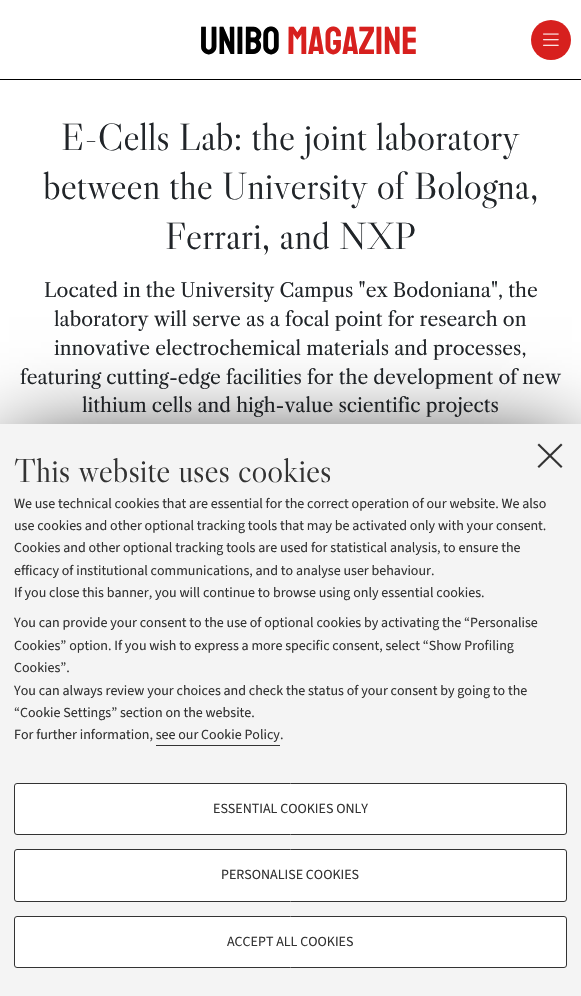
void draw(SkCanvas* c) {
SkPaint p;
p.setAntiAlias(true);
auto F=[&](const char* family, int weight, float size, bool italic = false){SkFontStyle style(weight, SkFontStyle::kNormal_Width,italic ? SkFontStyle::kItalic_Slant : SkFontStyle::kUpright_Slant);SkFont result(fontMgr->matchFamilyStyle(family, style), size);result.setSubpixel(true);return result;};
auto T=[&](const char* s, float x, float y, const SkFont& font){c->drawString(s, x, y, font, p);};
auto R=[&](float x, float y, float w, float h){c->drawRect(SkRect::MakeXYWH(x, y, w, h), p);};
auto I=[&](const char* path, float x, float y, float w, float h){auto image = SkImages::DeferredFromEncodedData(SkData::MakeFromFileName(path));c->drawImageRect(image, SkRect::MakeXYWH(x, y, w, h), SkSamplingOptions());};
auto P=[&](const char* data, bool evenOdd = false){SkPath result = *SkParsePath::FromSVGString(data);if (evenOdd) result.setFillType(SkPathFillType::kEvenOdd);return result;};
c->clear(0xffffffff);
p.setColor(0xff000000);
R(0,79,581,1);
auto f1 = F("Staatliches",400,39);
T("Unibo",200,54,f1);
p.setColor(0xffd7201e);
T("Magazine",287,54,f1);
c->drawCircle(551,40,20,p);
I("1.png",543,33,16,13);
auto f2 = F("Libre Caslon Display",400,38);
p.setColor(0xff212529);
T("E-Cells Lab: the joint laboratory",61,150,f2);
T("between the University of Bologna,",43,199,f2);
T("Ferrari, and NXP",165,249,f2);
auto f3 = F("Libre Caslon Text",400,19.2);
T("Located in the University Campus \"ex Bodoniana\", the",44,297,f3);
T("laboratory will serve as a focal point for research on",54,326,f3);
T("innovative electrochemical materials and processes,",54,355,f3);
T("featuring cutting-edge facilities for the development of new",20,384,f3);
T("lithium cells and high-value scientific projects",82,412,f3);
p.setColor(0xff000000);
p.setMaskFilter(SkMaskFilter::MakeBlur(kNormal_SkBlurStyle, 45));
c->drawRect(SkRect::MakeXYWH(9,451,563,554),p);
p.setMaskFilter(nullptr);
p.setColor(0xfff4f4f4);
R(0,424,581,572);
p.setColor(0xff333333);
c->drawPath(P("M561 443.5l1.5 1.5l-23.5 23l-1.5-1.5z"),p);
c->drawPath(P("M537.5 445l1.5-1.5l23.5 23l-1.5 1.5z"),p);
auto f4 = F("Libre Caslon Display",400,33.25);
T("This website uses cookies",14,482,f4);
auto f5 = F("Source Sans 3",400,14);
T("We use technical cookies that are essential for the correct operation of our website. We also",14,508,f5);
T("use cookies and other optional tracking tools that may be activated only with your consent.",14,530,f5);
T("Cookies and other optional tracking tools are used for statistical analysis, to ensure the",14,552,f5);
T("efficacy of institutional communications, and to analyse user behaviour.",14,575,f5);
T("If you close this banner, you will continue to browse using only essential cookies.",14,597,f5);
T("You can provide your consent to the use of optional cookies by activating the “Personalise",14,627,f5);
T("Cookies” option. If you wish to express a more specific consent, select “Show Profiling",14,650,f5);
T("Cookies”.",14,672,f5);
T("You can always review your choices and check the status of your consent by going to the",14,695,f5);
T("“Cookie Settings” section on the website.",14,717,f5);
T("For further information, see our Cookie Policy.",14,739,f5);
R(156,745,124,1);
p.setColor(0xffffffff);
c->drawRoundRect(SkRect::MakeXYWH(14.5,783.5,552,51),2.5,2.5,p);
p.setStroke(true);
p.setStrokeWidth(1);
p.setColor(0xff333333);
c->drawRoundRect(SkRect::MakeXYWH(14.5,783.5,552,51),2.5,2.5,p);
p.setStroke(false);
T("ESSENTIAL COOKIES ONLY",213,813,f5);
p.setColor(0xffffffff);
c->drawRoundRect(SkRect::MakeXYWH(14.5,849.5,552,52),2.5,2.5,p);
p.setStroke(true);
p.setColor(0xff333333);
c->drawRoundRect(SkRect::MakeXYWH(14.5,849.5,552,52),2.5,2.5,p);
p.setStroke(false);
T("PERSONALISE COOKIES",221,879,f5);
p.setColor(0xffffffff);
c->drawRoundRect(SkRect::MakeXYWH(14.5,916.5,552,51),2.5,2.5,p);
p.setStroke(true);
p.setColor(0xff333333);
c->drawRoundRect(SkRect::MakeXYWH(14.5,916.5,552,51),2.5,2.5,p);
p.setStroke(false);
T("ACCEPT ALL COOKIES",227,946,f5);
}
